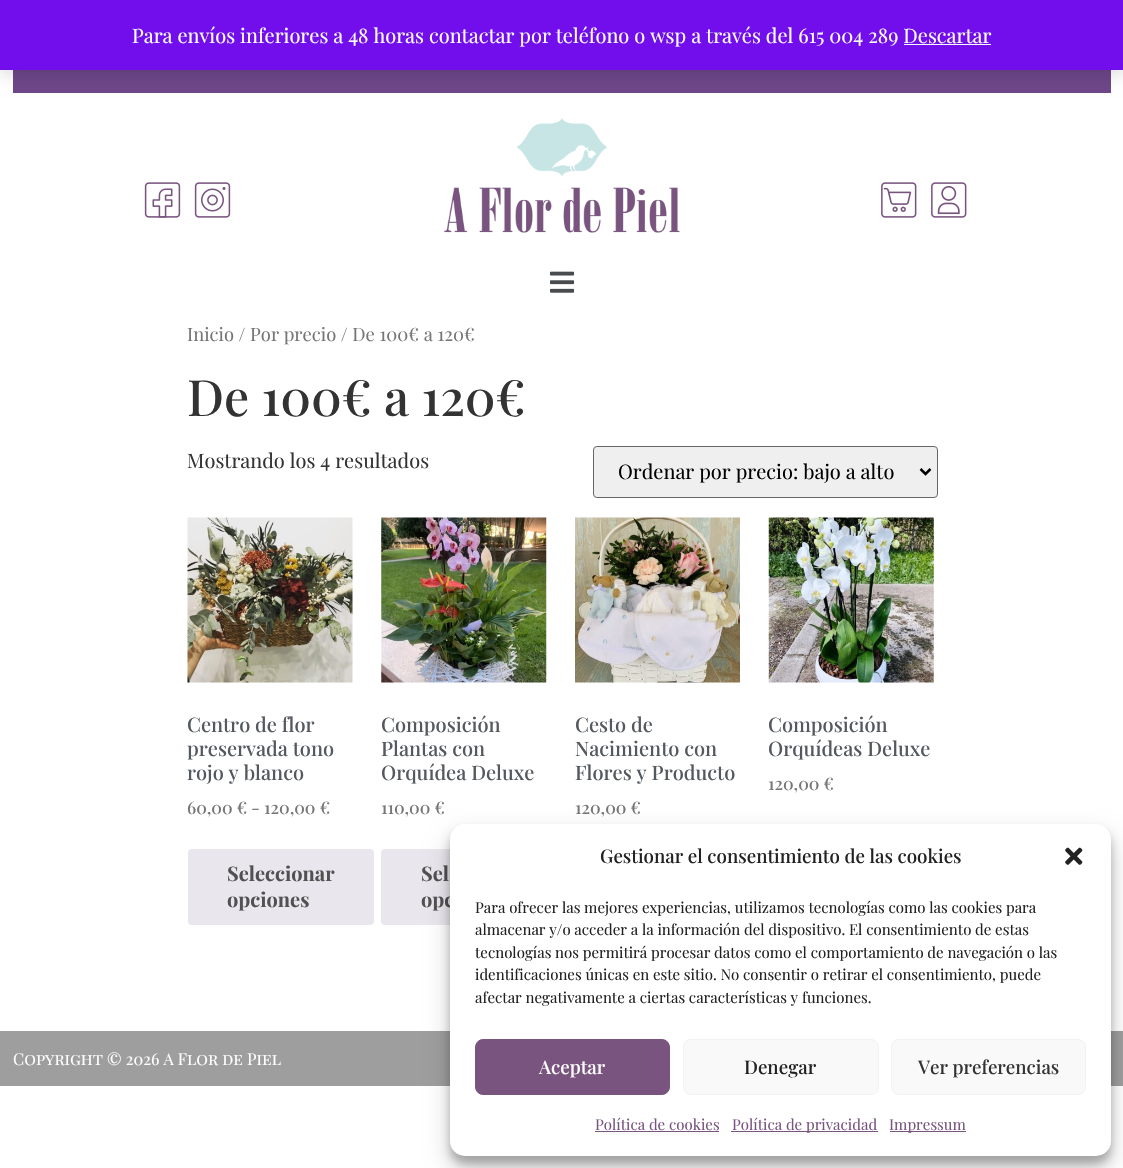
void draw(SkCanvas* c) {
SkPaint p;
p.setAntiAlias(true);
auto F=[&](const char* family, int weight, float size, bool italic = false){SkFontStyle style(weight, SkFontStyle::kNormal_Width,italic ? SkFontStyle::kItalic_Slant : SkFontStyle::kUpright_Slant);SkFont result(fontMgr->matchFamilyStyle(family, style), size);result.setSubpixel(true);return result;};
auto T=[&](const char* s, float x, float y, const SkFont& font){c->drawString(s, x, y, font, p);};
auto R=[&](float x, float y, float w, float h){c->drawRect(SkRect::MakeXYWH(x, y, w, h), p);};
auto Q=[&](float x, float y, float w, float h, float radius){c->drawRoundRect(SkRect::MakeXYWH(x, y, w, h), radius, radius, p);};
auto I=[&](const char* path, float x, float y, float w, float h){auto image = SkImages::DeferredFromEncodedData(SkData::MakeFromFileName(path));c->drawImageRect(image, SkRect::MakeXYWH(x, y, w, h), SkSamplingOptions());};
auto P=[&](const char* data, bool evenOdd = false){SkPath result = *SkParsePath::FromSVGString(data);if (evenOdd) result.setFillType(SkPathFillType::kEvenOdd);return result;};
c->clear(0xffffffff);
p.setColor(0xff6e478a);
R(13,70,1098,23);
p.setColor(0x33000000);
p.setMaskFilter(SkMaskFilter::MakeBlur(kNormal_SkBlurStyle, 10));
c->drawRect(SkRect::MakeXYWH(0,1,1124,70),p);
p.setMaskFilter(nullptr);
p.setColor(0xff720eec);
R(0,0,1123,70);
auto f1 = F("Playfair Display",400,20);
p.setColor(0xffffffff);
T("Para envíos inferiores a 48 horas contactar por teléfono o wsp a través del 615 004 289 Descartar",132,43,f1);
p.setColor(0xfffcfbfe);
R(904,44,87,1);
I("1.png",144,182,37,36);
I("2.png",194,182,37,36);
I("3.png",444,118,236,115);
I("4.png",881,182,36,36);
I("5.png",931,182,36,36);
I("6.png",550,271,25,22);
auto f2 = F("Playfair Display",400,18.4);
p.setColor(0xff767676);
T("Inicio / Por precio / De 100€ a 120€",187,341,f2);
auto f3 = F("Playfair Display",500,50);
p.setColor(0xff333333);
T("De 100€ a 120€",187,416,f3);
T("Mostrando los 4 resultados",187,468,f1);
p.setColor(0xffefefef);
c->drawRoundRect(SkRect::MakeXYWH(593.5,446.5,344,51),3.5,3.5,p);
p.setStroke(true);
p.setStrokeWidth(1);
p.setColor(0xff666666);
c->drawRoundRect(SkRect::MakeXYWH(593.5,446.5,344,51),3.5,3.5,p);
p.setStrokeWidth(2.5);
p.setColor(0xff000000);
c->drawPath(P("M920.5 469l5 5l5-5"),p);
p.setStroke(false);
T("Ordenar por precio: bajo a alto",618,479,f1);
I("7.png",187,517,166,166);
auto f4 = F("Playfair Display",500,20);
p.setColor(0xff54595f);
T("Centro de flor",187,732,f4);
T("preservada tono",187,756,f4);
T("rojo y blanco",187,780,f4);
auto f5 = F("Playfair Display",500,17.25);
p.setColor(0xff767676);
T("60,00 € - 120,00 €",187,814,f5);
p.setColor(0xffe9e6ed);
Q(188,849,186,76,4);
auto f6 = F("Playfair Display",700,20);
p.setColor(0xff515151);
T("Seleccionar",227,881,f6);
T("opciones",227,907,f6);
I("8.png",381,517,166,166);
p.setColor(0xff54595f);
T("Composición",381,732,f4);
T("Plantas con",381,756,f4);
T("Orquídea Deluxe",381,780,f4);
p.setColor(0xff767676);
T("110,00 €",381,814,f5);
p.setColor(0xffe9e6ed);
Q(381,849,188,76,4);
p.setColor(0xff515151);
T("Sel",421,881,f6);
T("opc",421,907,f6);
I("9.png",575,517,165,166);
p.setColor(0xff54595f);
T("Cesto de",575,732,f4);
T("Nacimiento con",575,756,f4);
T("Flores y Producto",575,780,f4);
p.setColor(0xff767676);
T("120,00 €",575,814,f5);
I("10.png",768,517,166,166);
p.setColor(0xff54595f);
T("Composición",768,732,f4);
T("Orquídeas Deluxe",768,756,f4);
p.setColor(0xff767676);
T("120,00 €",768,790,f5);
p.setColor(0xff9e9e9e);
R(0,1031,1123,55);
auto f7 = F("Playfair Display SC",400,16.25);
p.setColor(0xffffffff);
T("Copyright © 2026 A Flor de Piel",13,1065,f7);
p.setColor(0x3b000000);
p.setMaskFilter(SkMaskFilter::MakeBlur(kNormal_SkBlurStyle, 4));
c->drawRoundRect(SkRect::MakeXYWH(450,831,661,333),15,15,p);
p.setMaskFilter(nullptr);
p.setColor(0x30000000);
p.setMaskFilter(SkMaskFilter::MakeBlur(kNormal_SkBlurStyle, 12.5));
c->drawRoundRect(SkRect::MakeXYWH(450,836,661,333),15,15,p);
p.setMaskFilter(nullptr);
p.setColor(0xffffffff);
Q(450,824,661,332,15);
auto f8 = F("Playfair Display",500,18.75);
p.setColor(0xff222222);
T("Gestionar el consentimiento de las cookies",600,863,f8);
I("11.png",1065,847,18,18);
auto f9 = F("Playfair Display",400,15);
T("Para ofrecer las mejores experiencias, utilizamos tecnologías como las cookies para",475,913,f9);
T("almacenar y/o acceder a la información del dispositivo. El consentimiento de estas",475,935,f9);
T("tecnologías nos permitirá procesar datos como el comportamiento de navegación o las",475,958,f9);
T("identificaciones únicas en este sitio. No consentir o retirar el consentimiento, puede",475,980,f9);
T("afectar negativamente a ciertas características y funciones.",475,1003,f9);
p.setColor(0xff78547f);
c->drawRoundRect(SkRect::MakeXYWH(475.5,1039.5,194,55),7.5,7.5,p);
p.setStroke(true);
p.setStrokeWidth(1);
c->drawRoundRect(SkRect::MakeXYWH(475.5,1039.5,194,55),7.5,7.5,p);
p.setStroke(false);
p.setColor(0xffffffff);
T("Aceptar",539,1074,f8);
p.setColor(0xfff9f9f9);
c->drawRoundRect(SkRect::MakeXYWH(683.5,1039.5,195,55),7.5,7.5,p);
p.setStroke(true);
p.setColor(0xfff2f2f2);
c->drawRoundRect(SkRect::MakeXYWH(683.5,1039.5,195,55),7.5,7.5,p);
p.setStroke(false);
p.setColor(0xff222222);
T("Denegar",744,1074,f8);
p.setColor(0xfff9f9f9);
c->drawRoundRect(SkRect::MakeXYWH(891.5,1039.5,194,55),7.5,7.5,p);
p.setStroke(true);
p.setColor(0xfff2f2f2);
c->drawRoundRect(SkRect::MakeXYWH(891.5,1039.5,194,55),7.5,7.5,p);
p.setStroke(false);
p.setColor(0xff333333);
T("Ver preferencias",918,1074,f8);
p.setColor(0xff78547f);
T("Política de cookies",595,1130,f9);
R(595,1131,124,1);
R(731,1131,147,1);
T("Política de privacidad",732,1130,f9);
R(890,1131,76,1);
T("Impressum",889,1130,f9);
}
